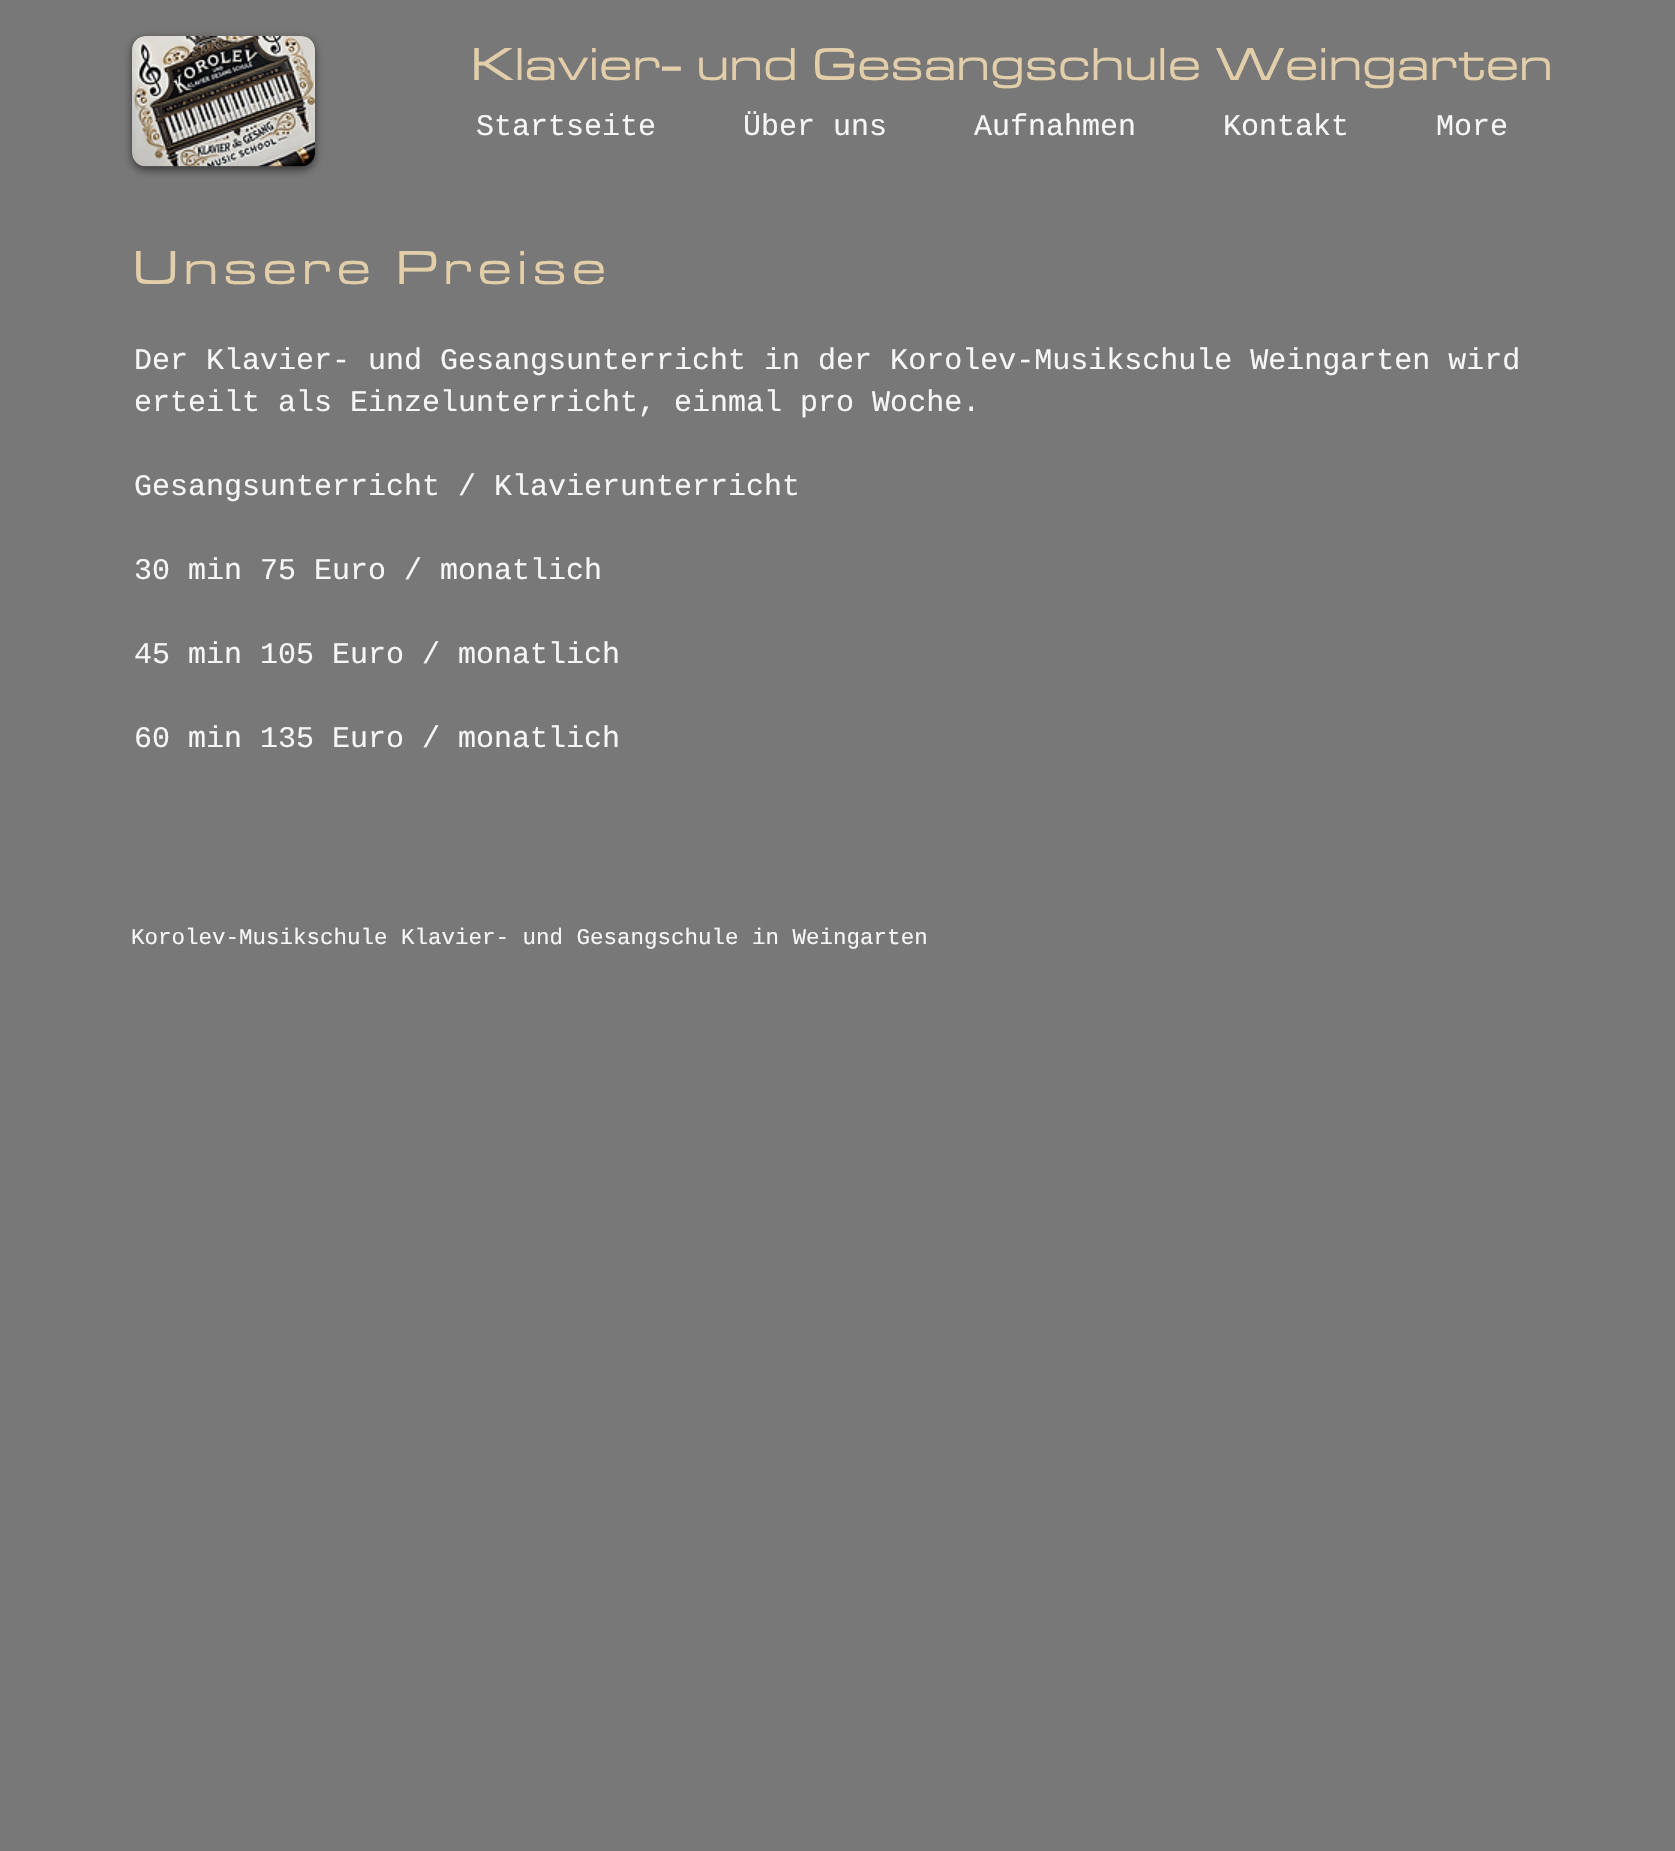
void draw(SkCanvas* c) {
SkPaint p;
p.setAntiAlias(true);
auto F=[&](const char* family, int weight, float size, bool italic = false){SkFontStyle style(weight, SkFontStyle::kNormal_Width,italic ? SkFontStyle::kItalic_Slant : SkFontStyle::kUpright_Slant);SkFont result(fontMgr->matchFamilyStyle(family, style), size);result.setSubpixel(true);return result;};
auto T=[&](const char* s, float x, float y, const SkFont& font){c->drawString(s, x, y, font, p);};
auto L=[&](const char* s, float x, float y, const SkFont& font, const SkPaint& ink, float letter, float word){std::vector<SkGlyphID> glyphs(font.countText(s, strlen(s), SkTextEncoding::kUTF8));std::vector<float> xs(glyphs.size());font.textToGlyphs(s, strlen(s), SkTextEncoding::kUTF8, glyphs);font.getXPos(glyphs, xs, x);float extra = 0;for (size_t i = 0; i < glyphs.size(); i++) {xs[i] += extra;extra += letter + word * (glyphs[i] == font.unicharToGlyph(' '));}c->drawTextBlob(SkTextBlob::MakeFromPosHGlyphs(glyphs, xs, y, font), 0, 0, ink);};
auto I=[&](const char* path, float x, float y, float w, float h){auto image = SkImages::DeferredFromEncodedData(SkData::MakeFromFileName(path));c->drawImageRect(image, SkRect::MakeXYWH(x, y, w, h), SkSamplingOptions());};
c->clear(0xff787878);
p.setColor(0x87000000);
p.setMaskFilter(SkMaskFilter::MakeBlur(kNormal_SkBlurStyle, 4));
c->drawRoundRect(SkRect::MakeXYWH(132,39,183,131),14,14,p);
p.setMaskFilter(nullptr);
I("1.png",132,36,183,131);
auto f1 = F("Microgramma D",500,48);
p.setColor(0xffe3ceaa);
L("Klavier- und Gesangschule Weingarten",472,80,f1,p,2.4,0);
auto f2 = F("Liberation Mono",400,30);
p.setColor(0xfff6f6f6);
T("Startseite",476,135,f2);
T("Über uns",743,135,f2);
T("Aufnahmen",974,135,f2);
T("Kontakt",1223,135,f2);
T("More",1436,135,f2);
auto f3 = F("Microgramma D",500,49.5);
p.setColor(0xffe3ceaa);
L("Unsere Preise",134,284,f3,p,7.5,0);
p.setColor(0xfff6f6f6);
T("Der Klavier- und Gesangsunterricht in der Korolev-Musikschule Weingarten wird",134,369,f2);
T("erteilt als Einzelunterricht, einmal pro Woche.",134,411,f2);
T("Gesangsunterricht / Klavierunterricht",134,495,f2);
T("30 min 75 Euro / monatlich",134,579,f2);
T("45 min 105 Euro / monatlich",134,663,f2);
T("60 min 135 Euro / monatlich",134,747,f2);
auto f4 = F("Liberation Mono",400,22.5);
T("Korolev-Musikschule Klavier- und Gesangschule in Weingarten",131,944,f4);
}
